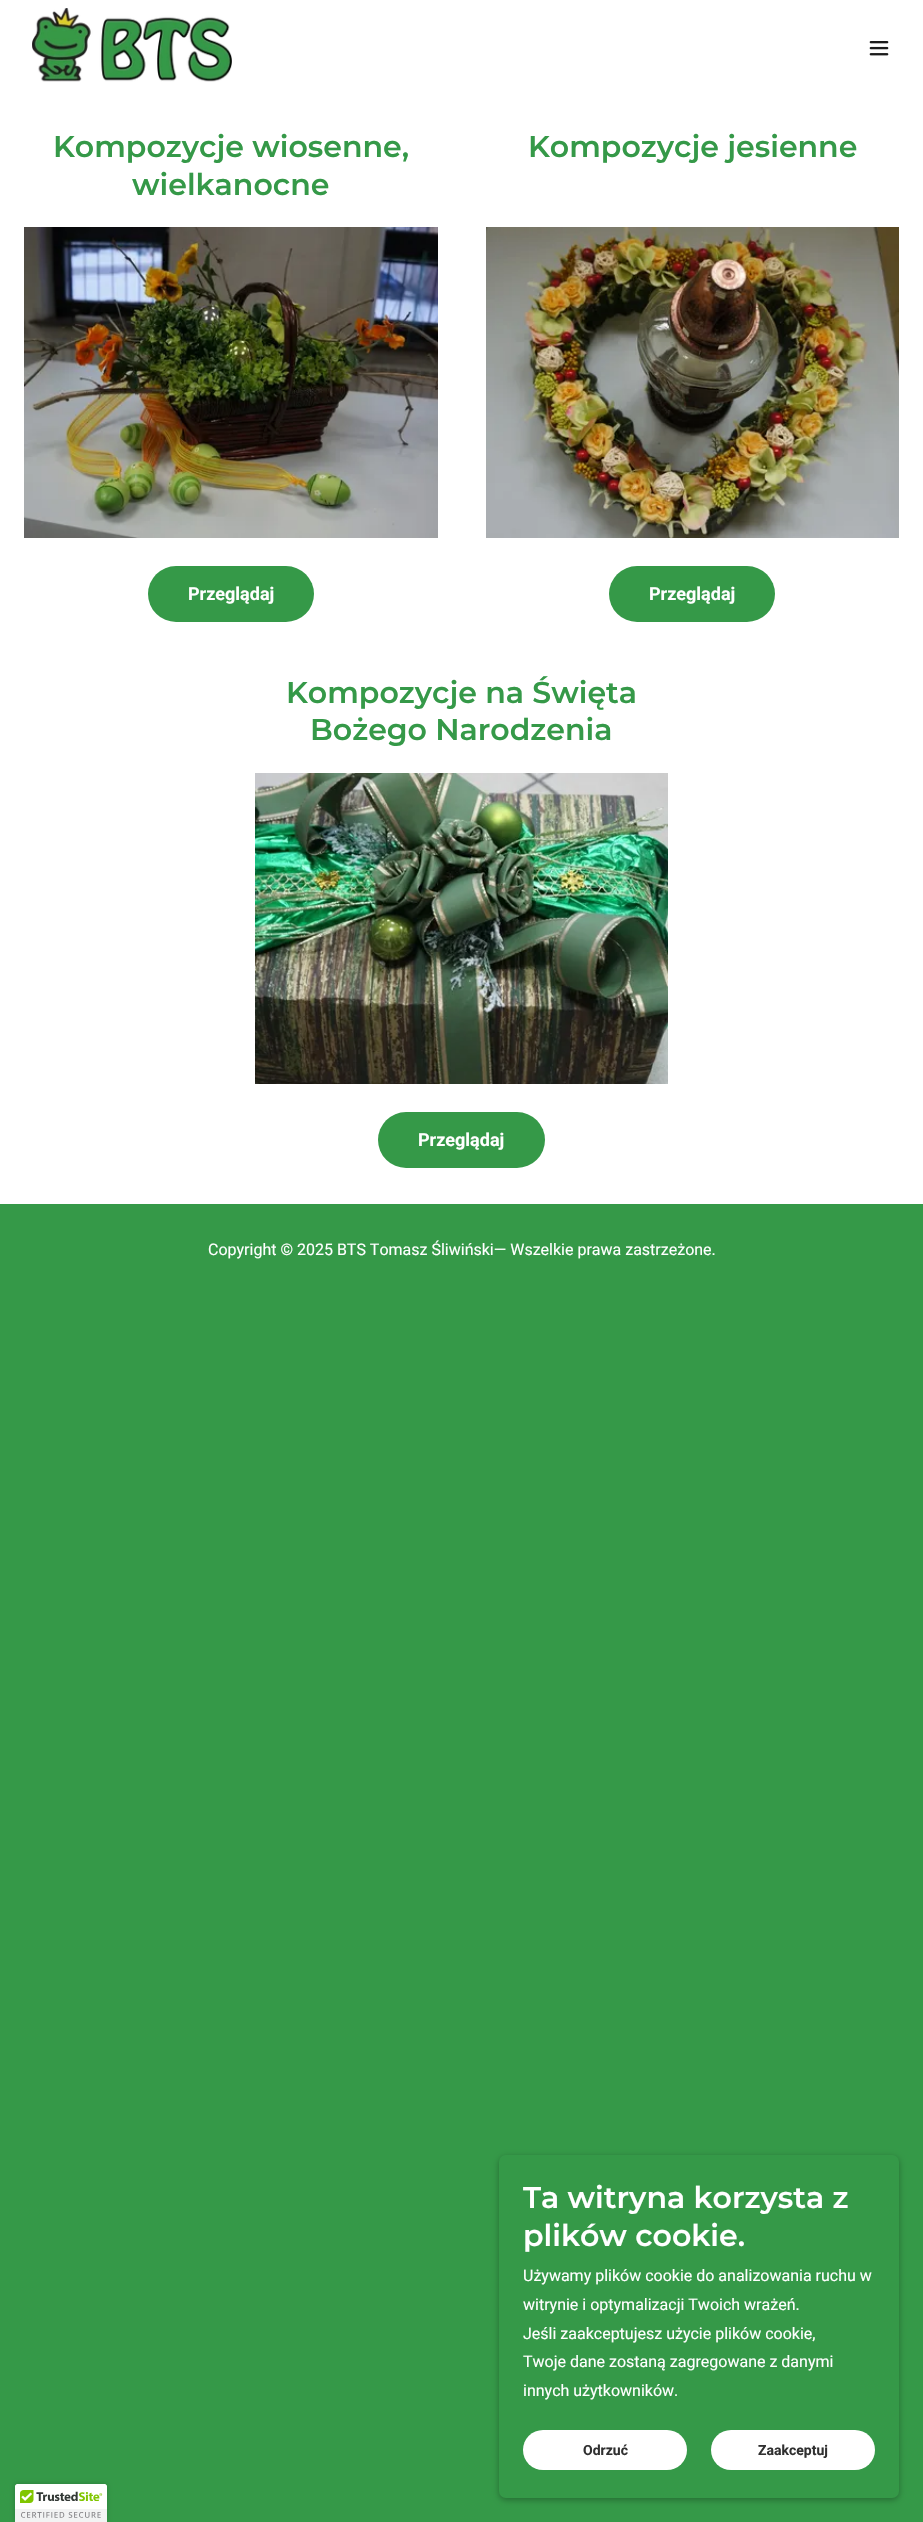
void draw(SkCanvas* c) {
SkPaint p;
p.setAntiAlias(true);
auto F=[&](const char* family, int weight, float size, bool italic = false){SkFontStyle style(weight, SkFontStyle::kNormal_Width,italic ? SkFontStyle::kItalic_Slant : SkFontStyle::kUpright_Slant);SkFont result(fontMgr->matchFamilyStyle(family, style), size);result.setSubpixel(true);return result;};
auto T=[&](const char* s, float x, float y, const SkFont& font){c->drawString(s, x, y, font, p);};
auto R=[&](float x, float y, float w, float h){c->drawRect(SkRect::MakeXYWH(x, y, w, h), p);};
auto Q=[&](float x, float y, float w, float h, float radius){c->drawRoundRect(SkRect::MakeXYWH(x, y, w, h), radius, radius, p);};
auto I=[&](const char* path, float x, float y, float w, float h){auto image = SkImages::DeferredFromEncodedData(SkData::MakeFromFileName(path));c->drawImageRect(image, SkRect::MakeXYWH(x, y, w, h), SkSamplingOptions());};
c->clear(0xff359948);
p.setColor(0xffffffff);
R(0,0,923,1204);
I("1.png",32,8,200,74);
I("2.png",869,41,20,15);
auto f1 = F("Montserrat",600,30);
p.setColor(0xff359948);
T("Kompozycje wiosenne,",53,157,f1);
T("wielkanocne",132,195,f1);
I("3.png",24,227,414,311);
Q(148,566,166,56,28);
auto f2 = F("Roboto",700,18);
p.setColor(0xffffffff);
T("Przeglądaj",188,600,f2);
p.setColor(0xff359948);
T("Kompozycje jesienne",528,157,f1);
I("4.png",486,227,413,311);
Q(609,566,166,56,28);
p.setColor(0xffffffff);
T("Przeglądaj",649,600,f2);
p.setColor(0xff359948);
T("Kompozycje na Święta",286,703,f1);
T("Bożego Narodzenia",310,740,f1);
I("5.png",255,773,413,311);
Q(378,1112,167,56,28);
p.setColor(0xffffffff);
T("Przeglądaj",418,1146,f2);
auto f3 = F("Roboto",400,16);
T("Copyright © 2025 BTS Tomasz Śliwiński— Wszelkie prawa zastrzeżone.",208,1255,f3);
p.setColor(0x4d000000);
p.setMaskFilter(SkMaskFilter::MakeBlur(kNormal_SkBlurStyle, 3));
c->drawRoundRect(SkRect::MakeXYWH(499,2157,400,343),7,7,p);
p.setMaskFilter(nullptr);
p.setColor(0xff359948);
Q(499,2155,400,343,7);
p.setColor(0xffffffff);
T("Ta witryna korzysta z",523,2208,f1);
T("plików cookie.",523,2246,f1);
T("Używamy plików cookie do analizowania ruchu w",523,2281,f3);
T("witrynie i optymalizacji Twoich wrażeń.",523,2310,f3);
T("Jeśli zaakceptujesz użycie plików cookie,",523,2339,f3);
T("Twoje dane zostaną zagregowane z danymi",523,2367,f3);
T("innych użytkowników.",523,2396,f3);
Q(523,2430,164,40,20);
auto f4 = F("Roboto",700,14);
p.setColor(0xff303030);
T("Odrzuć",583,2455,f4);
p.setColor(0xffffffff);
Q(711,2430,164,40,20);
p.setColor(0xff303030);
T("Zaakceptuj",758,2455,f4);
p.setColor(0x33000000);
p.setMaskFilter(SkMaskFilter::MakeBlur(kNormal_SkBlurStyle, 2.5));
c->drawRoundRect(SkRect::MakeXYWH(15,2484,92,38),2,2,p);
p.setMaskFilter(nullptr);
I("6.png",15,2484,92,38);
}
